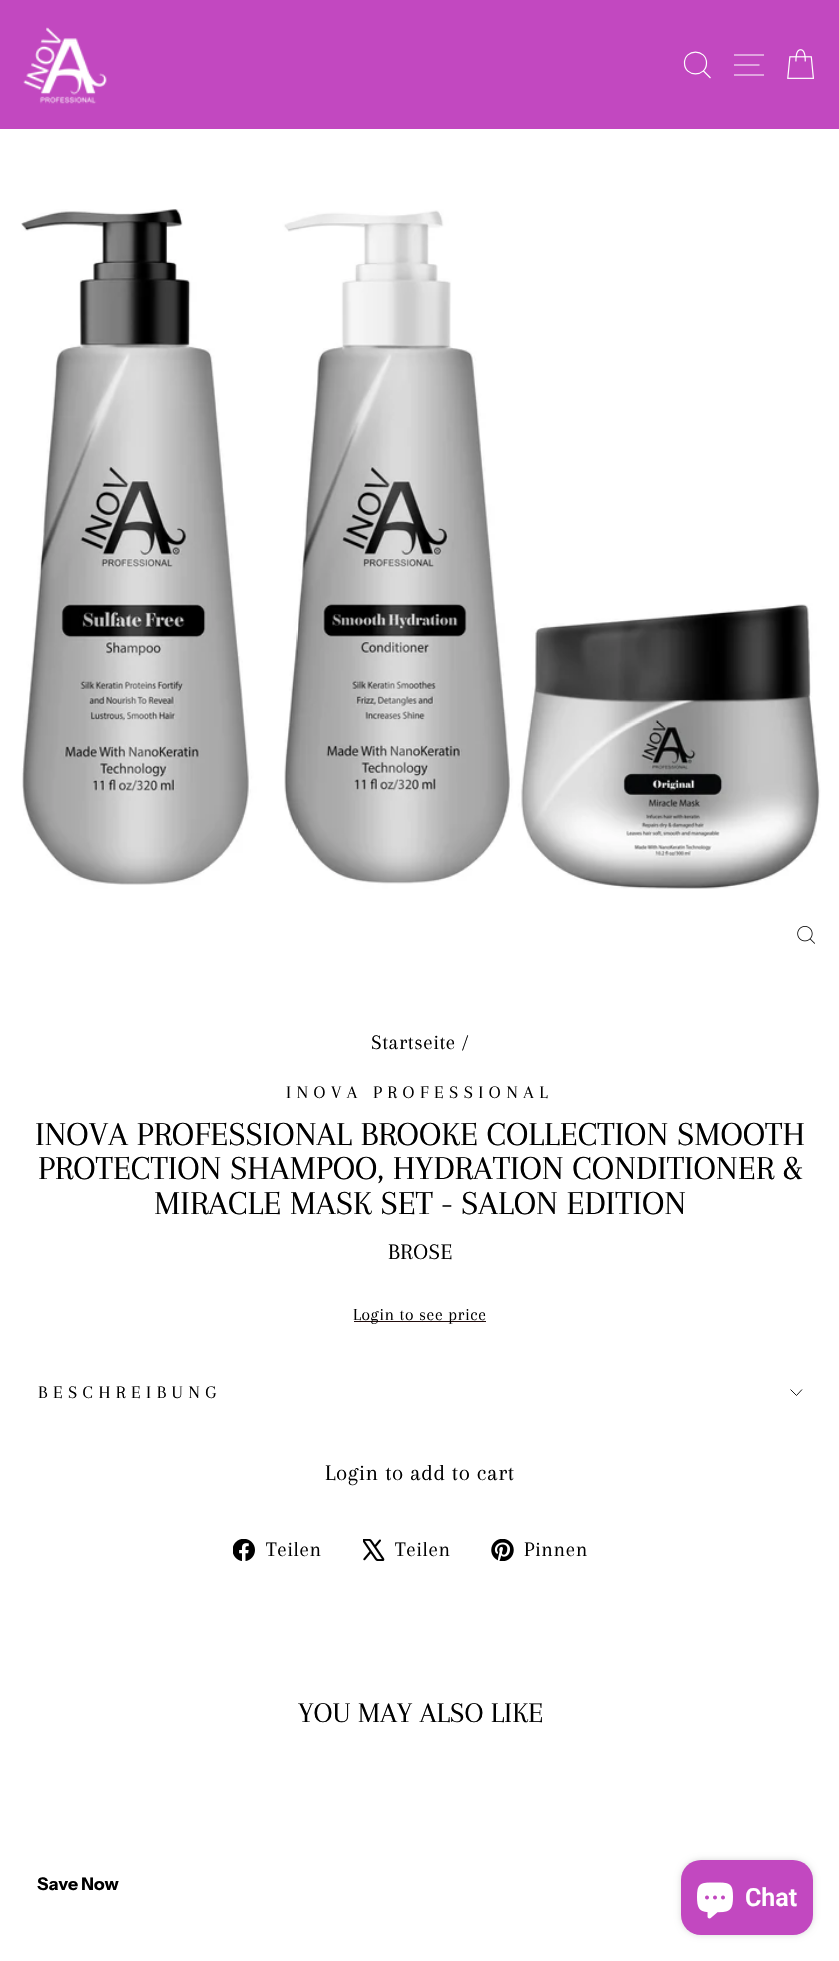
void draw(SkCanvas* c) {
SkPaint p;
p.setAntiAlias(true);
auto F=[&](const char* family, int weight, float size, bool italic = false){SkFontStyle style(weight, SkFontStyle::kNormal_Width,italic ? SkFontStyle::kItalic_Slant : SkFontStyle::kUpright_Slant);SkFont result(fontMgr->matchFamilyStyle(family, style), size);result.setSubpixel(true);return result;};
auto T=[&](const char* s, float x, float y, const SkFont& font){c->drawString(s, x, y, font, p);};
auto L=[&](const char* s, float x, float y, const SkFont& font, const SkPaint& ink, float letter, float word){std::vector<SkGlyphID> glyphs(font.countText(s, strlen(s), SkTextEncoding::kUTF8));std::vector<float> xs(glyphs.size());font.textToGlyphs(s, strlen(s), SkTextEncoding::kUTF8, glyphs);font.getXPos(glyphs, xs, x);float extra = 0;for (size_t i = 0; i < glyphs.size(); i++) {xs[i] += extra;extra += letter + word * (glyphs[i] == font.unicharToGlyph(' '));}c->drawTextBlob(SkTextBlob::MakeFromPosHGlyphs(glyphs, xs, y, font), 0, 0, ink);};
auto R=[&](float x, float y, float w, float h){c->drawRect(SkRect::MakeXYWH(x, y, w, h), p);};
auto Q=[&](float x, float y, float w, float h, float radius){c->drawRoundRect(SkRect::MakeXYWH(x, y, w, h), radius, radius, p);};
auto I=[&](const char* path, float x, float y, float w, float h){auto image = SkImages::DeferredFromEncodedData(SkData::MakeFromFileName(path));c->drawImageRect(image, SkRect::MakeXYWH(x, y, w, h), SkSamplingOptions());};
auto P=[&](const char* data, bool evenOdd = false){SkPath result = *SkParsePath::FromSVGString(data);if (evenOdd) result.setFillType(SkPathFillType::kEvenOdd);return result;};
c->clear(0xffffffff);
p.setColor(0xffc248c0);
R(0,0,839,129);
I("1.png",23,27,84,77);
p.setStroke(true);
p.setStrokeWidth(1.2);
p.setColor(0xffffffff);
c->drawPath(P("M706.5 63c0 14.5-22 14.5-22 0c0-14.5 22-14.5 22 0zm4 15l-7-7"),p);
c->drawPath(P("M734 55h30m-30 10h25.5m-25.5 10h30"),p);
I("2.png",787,49,27,30);
I("3.png",21,209,800,680);
I("4.png",797,926,18,18);
auto f1 = F("Arapey",400,21.25);
p.setStroke(false);
p.setColor(0xff000000);
L("Startseite /",371,1049,f1,p,.6,0);
auto f2 = F("Arapey",400,18.4);
L("INOVA PROFESSIONAL",286,1098,f2,p,5.5,0);
auto f3 = F("Arapey",400,34.7);
T("INOVA PROFESSIONAL BROOKE COLLECTION SMOOTH",35,1145,f3);
T("PROTECTION SHAMPOO, HYDRATION CONDITIONER &",38,1179,f3);
T("MIRACLE MASK SET - SALON EDITION",154,1214,f3);
auto f4 = F("Arapey",400,23);
L("BROSE",388,1259,f4,p,.6,0);
p.setColor(0xff230d0d);
R(354,1321,132,1);
auto f5 = F("Arapey",400,17.5);
p.setColor(0xff000000);
L("Login to see price",353,1320,f5,p,.6,0);
L("BESCHREIBUNG",38,1398,f2,p,5.5,0);
p.setStroke(true);
p.setStrokeWidth(.9);
c->drawPath(P("M790.5 1389.5l6 6l5.5-6"),p);
p.setStroke(false);
L("Login to add to cart",325,1480,f4,p,.6,0);
I("5.png",233,1539,22,22);
L("Teilen",266,1556,f1,p,.6,0);
I("6.png",363,1539,22,22);
L("Teilen",395,1556,f1,p,.6,0);
I("7.png",491,1539,23,22);
L("Pinnen",524,1556,f1,p,.6,0);
auto f6 = F("Arapey",400,29.5);
T("YOU MAY ALSO LIKE",298,1722,f6);
auto f7 = F("Instrument Sans",700,17.5);
T("Save Now",37,1890,f7);
p.setColor(0x26000000);
p.setMaskFilter(SkMaskFilter::MakeBlur(kNormal_SkBlurStyle, 3));
c->drawRoundRect(SkRect::MakeXYWH(681,1860,132,75),20,20,p);
p.setMaskFilter(nullptr);
p.setColor(0xffc248c0);
Q(681,1860,132,75,20);
I("8.png",697,1882,36,37);
auto f8 = F("Roboto",600,25);
p.setColor(0xffffffff);
T("Chat",745,1906,f8);
}
